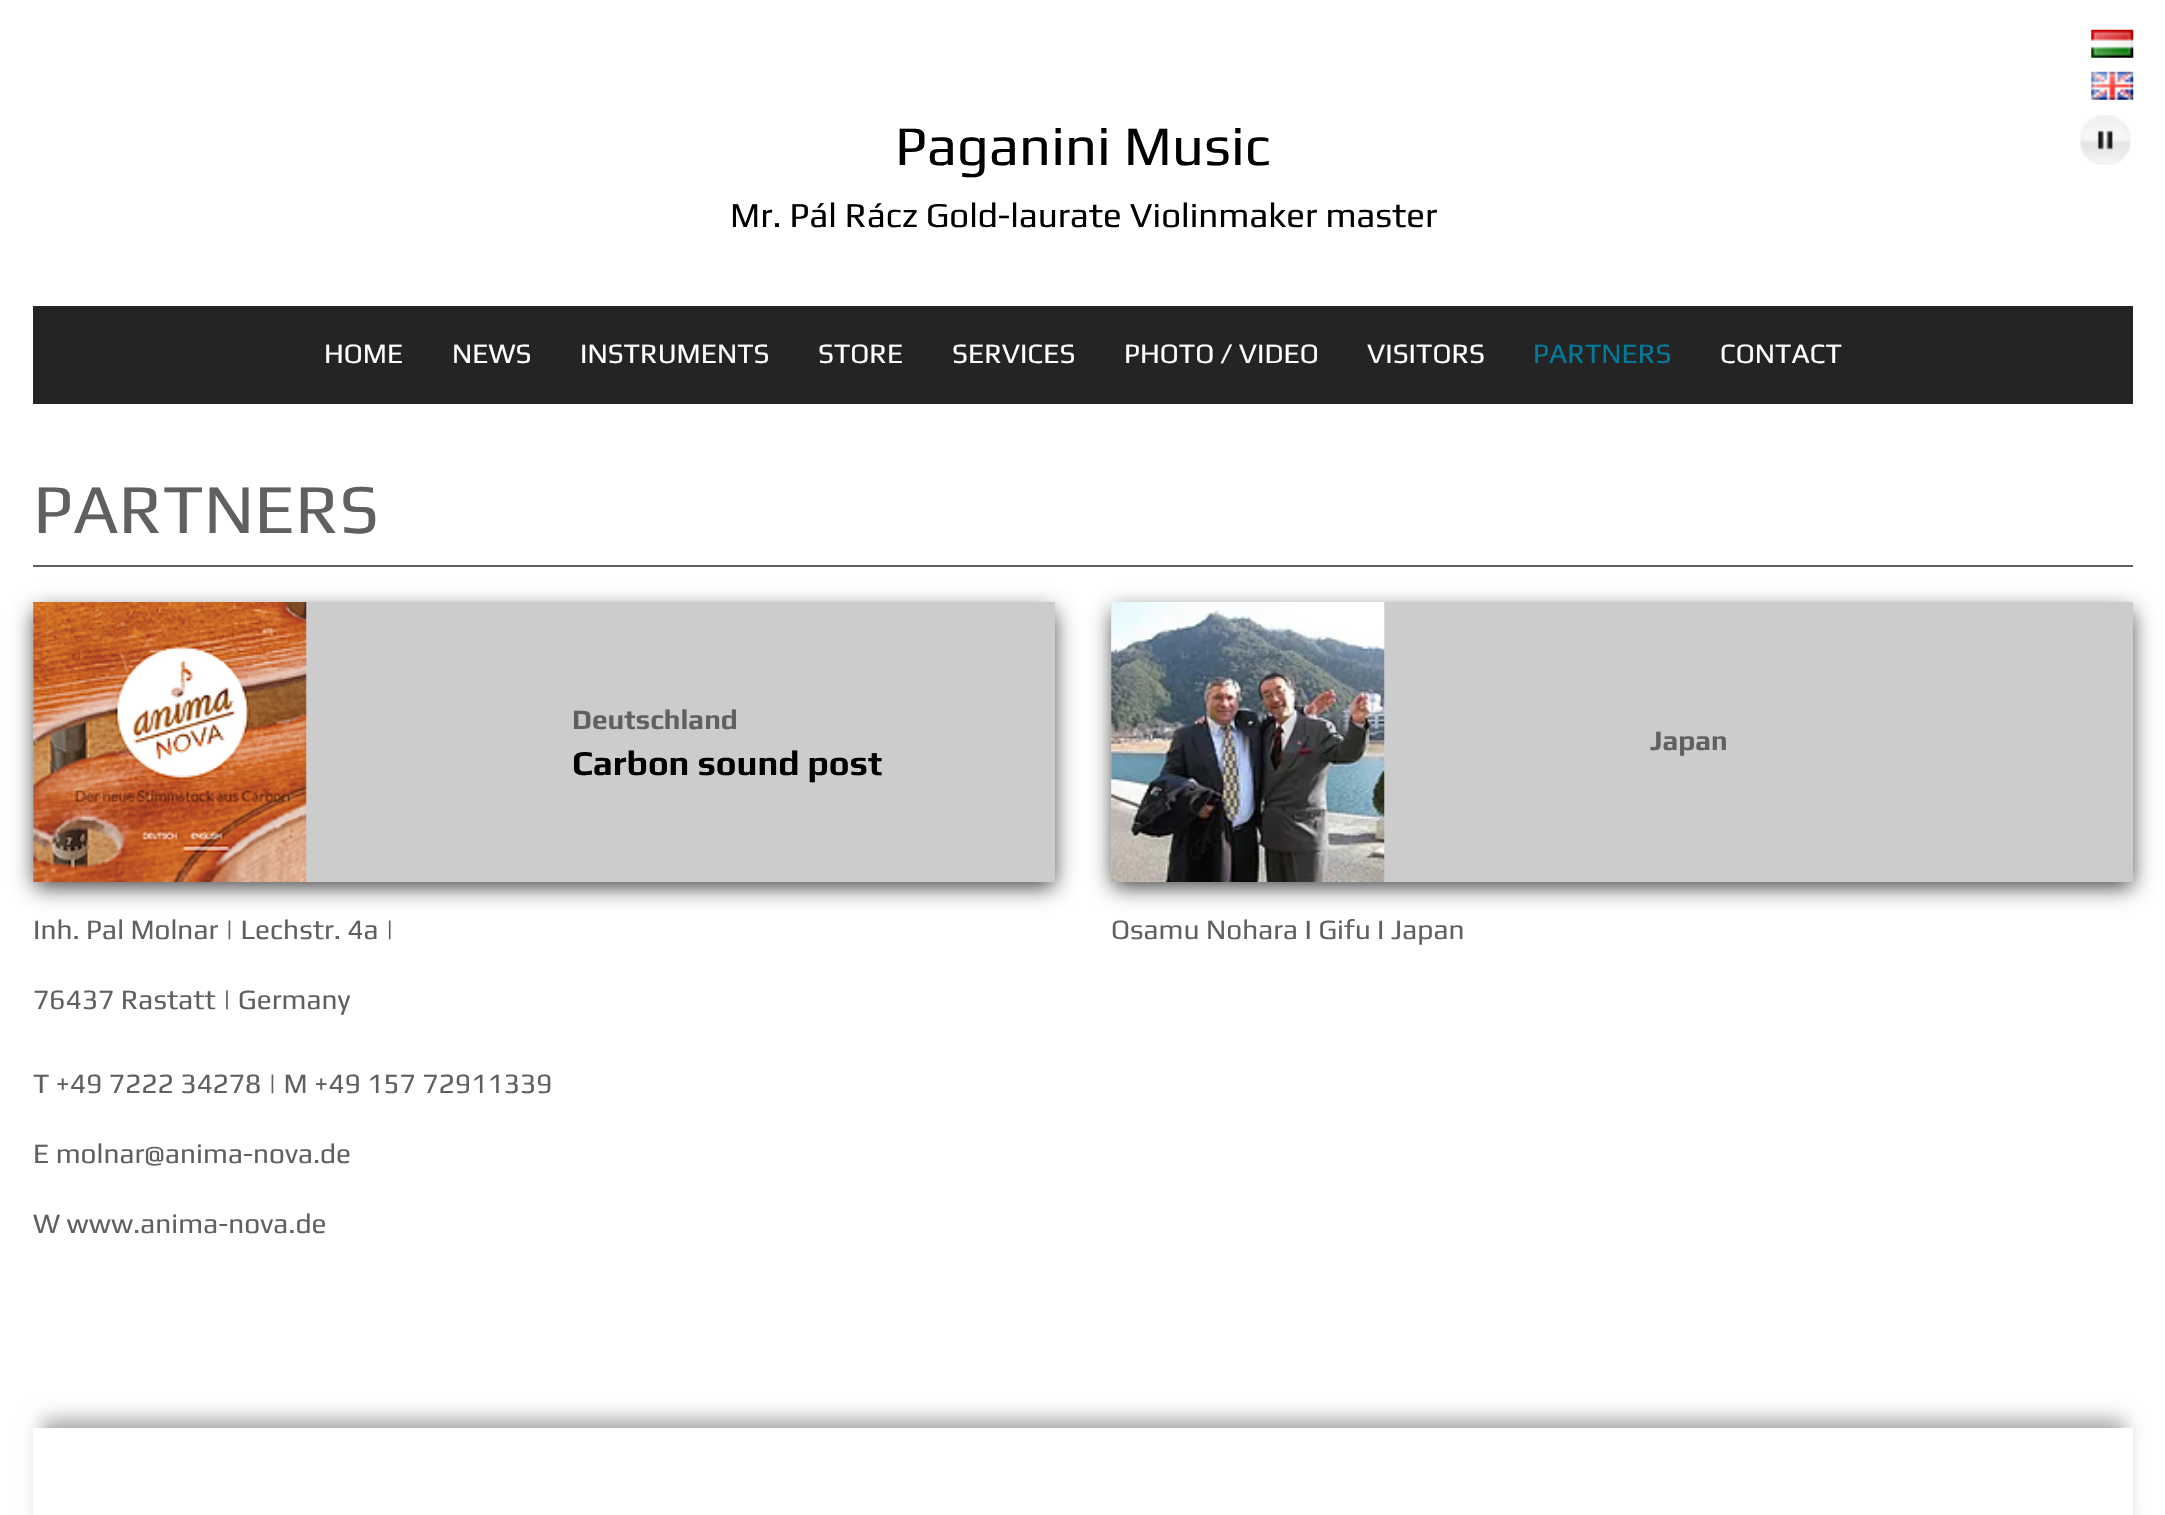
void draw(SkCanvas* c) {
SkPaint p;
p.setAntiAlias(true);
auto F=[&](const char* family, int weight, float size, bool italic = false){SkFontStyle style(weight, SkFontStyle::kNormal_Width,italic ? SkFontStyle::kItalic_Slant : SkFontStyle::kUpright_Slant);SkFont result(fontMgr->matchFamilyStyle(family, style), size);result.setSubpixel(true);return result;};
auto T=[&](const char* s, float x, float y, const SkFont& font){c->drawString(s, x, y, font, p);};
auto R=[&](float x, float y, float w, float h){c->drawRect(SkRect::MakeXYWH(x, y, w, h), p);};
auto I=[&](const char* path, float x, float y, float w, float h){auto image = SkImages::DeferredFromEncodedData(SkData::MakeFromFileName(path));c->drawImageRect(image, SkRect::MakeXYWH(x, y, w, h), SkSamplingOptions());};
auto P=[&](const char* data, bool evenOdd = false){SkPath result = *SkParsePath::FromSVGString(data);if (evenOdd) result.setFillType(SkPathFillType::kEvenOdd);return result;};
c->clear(0xffffffff);
I("1.png",2091,29,43,29);
I("2.png",2091,71,43,29);
I("3.png",2080,115,51,50);
auto f1 = F("Play",400,56);
p.setColor(0xff000000);
T("Paganini Music",895,165,f1);
auto f2 = F("Play",400,35);
T("Mr. Pál Rácz Gold-laurate Violinmaker master",730,227,f2);
p.setColor(0xff242424);
R(33,306,2100,98);
auto f3 = F("Play",400,28);
p.setColor(0xffffffff);
T("HOME",324,363,f3);
T("NEWS",452,363,f3);
T("INSTRUMENTS",580,363,f3);
T("STORE",818,363,f3);
T("SERVICES",952,363,f3);
T("PHOTO / VIDEO",1124,363,f3);
T("VISITORS",1367,363,f3);
p.setColor(0xff007b9a);
T("PARTNERS",1533,363,f3);
p.setColor(0xffffffff);
T("CONTACT",1720,363,f3);
p.setColor(0xff606060);
R(33,565,2100,2);
auto f4 = F("Play",400,70);
T("PARTNERS",33,533,f4);
p.setColor(0xbf000000);
p.setMaskFilter(SkMaskFilter::MakeBlur(kNormal_SkBlurStyle, 10.5));
c->drawRect(SkRect::MakeXYWH(35,611,1019,276),p);
p.setMaskFilter(nullptr);
p.setColor(0xffcccccc);
R(33,602,1022,280);
I("4.png",33,602,274,280);
auto f5 = F("Play",700,28);
p.setColor(0xff606060);
T("Deutschland",572,729,f5);
auto f6 = F("Play",700,35);
p.setColor(0xff000000);
T("Carbon sound post",572,775,f6);
p.setColor(0xff606060);
T("Inh. Pal Molnar | Lechstr. 4a |",33,939,f3);
T("76437 Rastatt | Germany",33,1009,f3);
T("T +49 7222 34278 | M +49 157 72911339",33,1093,f3);
T("E molnar@anima-nova.de",33,1163,f3);
T("W www.anima-nova.de",33,1233,f3);
p.setColor(0xbf000000);
p.setMaskFilter(SkMaskFilter::MakeBlur(kNormal_SkBlurStyle, 10.5));
c->drawRect(SkRect::MakeXYWH(1113,611,1019,276),p);
p.setMaskFilter(nullptr);
p.setColor(0xffcccccc);
R(1111,602,1022,280);
I("5.png",1111,602,274,280);
p.setColor(0xff606060);
T("Japan",1650,750,f5);
T("Osamu Nohara I Gifu I Japan",1111,939,f3);
c->save();
c->clipPath(P("M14 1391h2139v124h-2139zm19 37h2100v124h-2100z",true),true);
p.setColor(0xffaaaaaa);
p.setMaskFilter(SkMaskFilter::MakeBlur(kNormal_SkBlurStyle, 9));
c->drawRect(SkRect::MakeXYWH(42,1419,2083,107),p);
p.setMaskFilter(nullptr);
c->restore();
}
